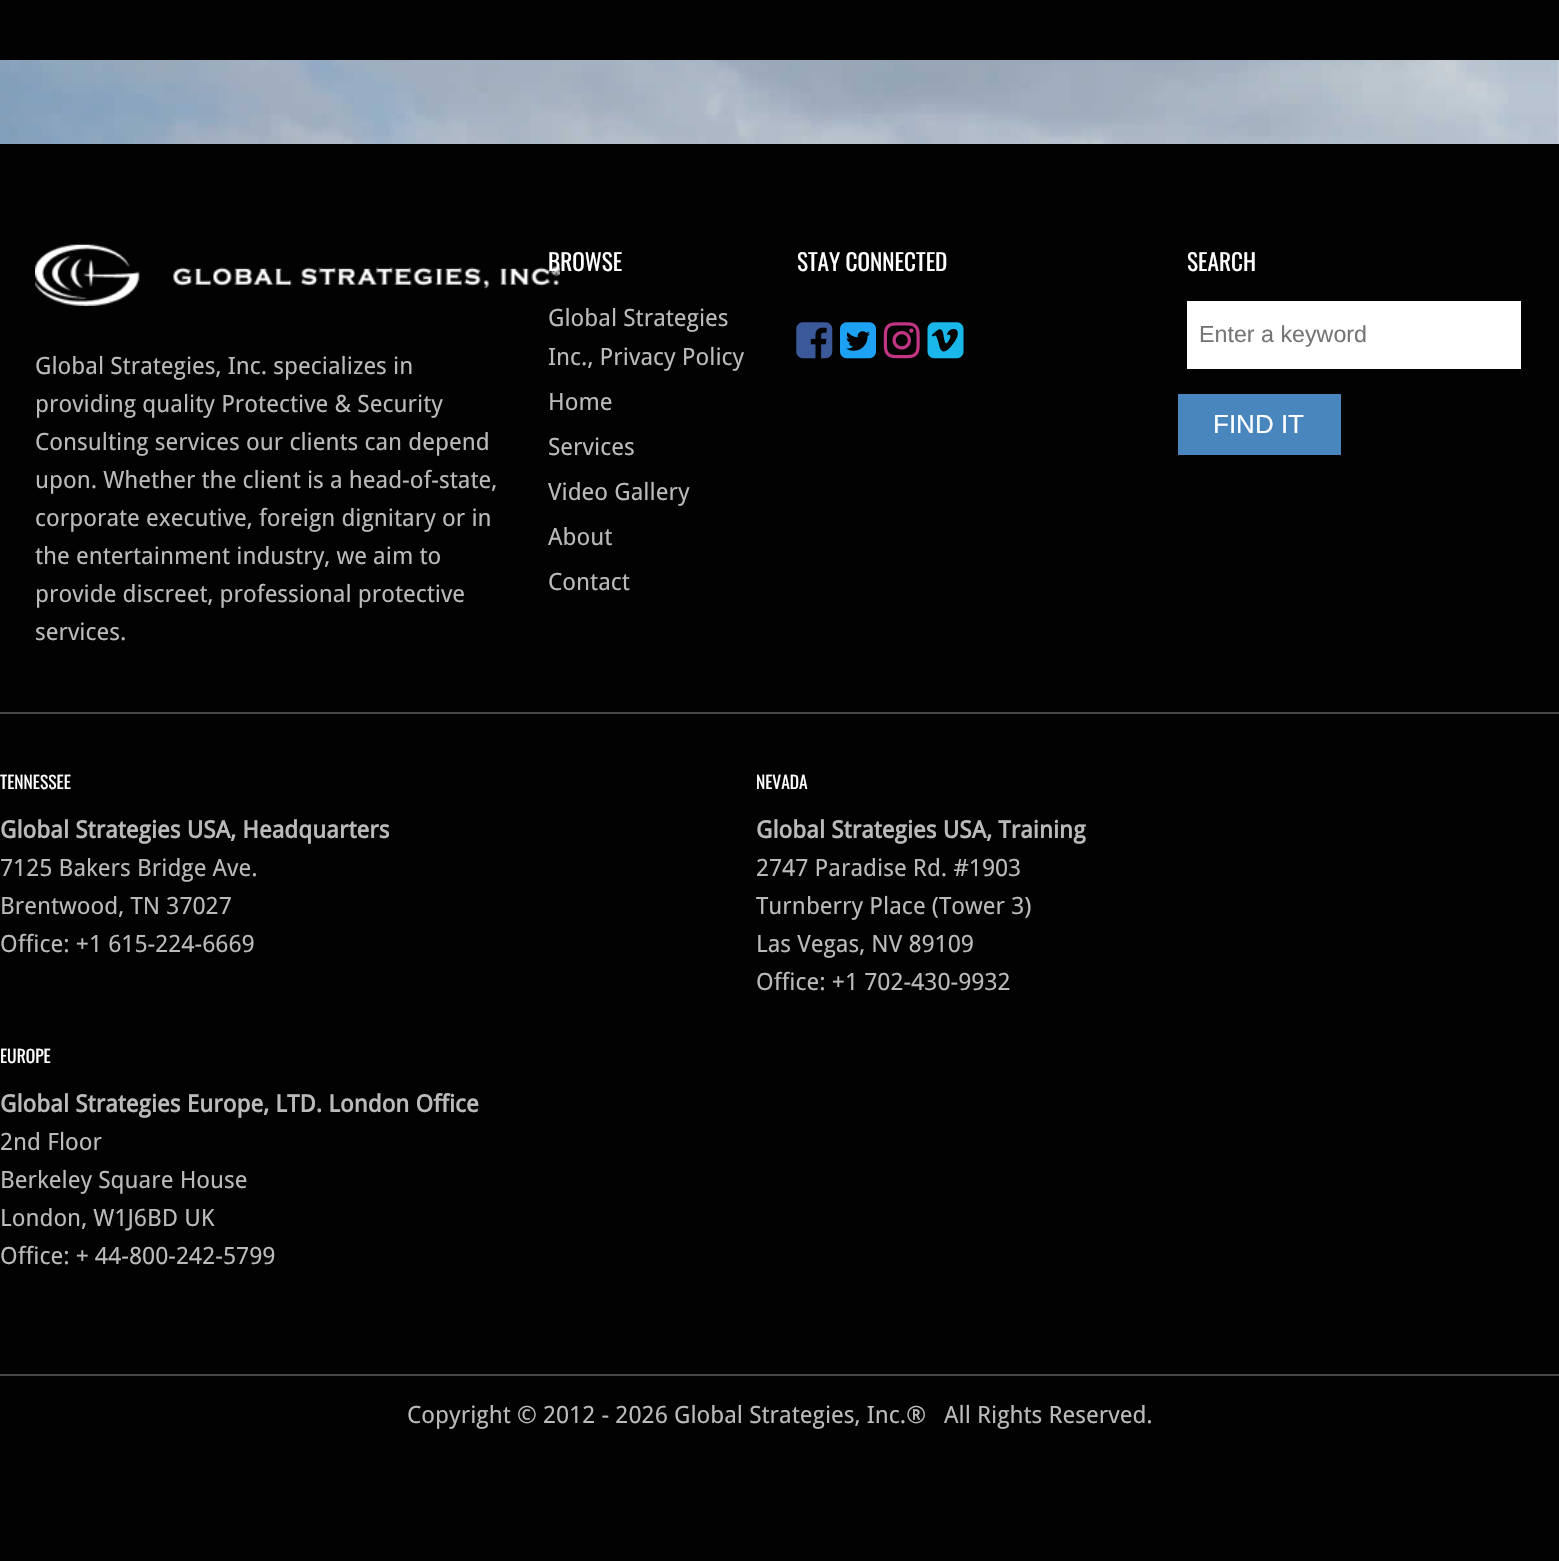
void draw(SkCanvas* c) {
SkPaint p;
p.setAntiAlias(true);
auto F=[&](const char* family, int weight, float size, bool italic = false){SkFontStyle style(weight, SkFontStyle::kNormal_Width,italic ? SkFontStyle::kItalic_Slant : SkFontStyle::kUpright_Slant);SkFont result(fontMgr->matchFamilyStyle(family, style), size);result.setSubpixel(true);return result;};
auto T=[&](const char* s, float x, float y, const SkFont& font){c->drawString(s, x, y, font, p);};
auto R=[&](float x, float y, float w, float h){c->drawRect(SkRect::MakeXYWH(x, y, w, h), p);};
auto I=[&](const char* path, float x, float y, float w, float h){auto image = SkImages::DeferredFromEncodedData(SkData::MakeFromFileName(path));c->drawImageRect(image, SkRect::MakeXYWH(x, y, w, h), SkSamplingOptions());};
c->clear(0xffffffff);
I("1.png",0,60,1559,84);
p.setColor(0xff020202);
R(0,0,1559,60);
R(0,144,1559,1417);
I("2.png",35,244,525,62);
auto f1 = F("Droid Sans",400,23.8);
p.setColor(0xffbababa);
T("Global Strategies, Inc. specializes in",35,374,f1);
T("providing quality Protective & Security",35,412,f1);
T("Consulting services our clients can depend",35,450,f1);
T("upon. Whether the client is a head-of-state,",35,488,f1);
T("corporate executive, foreign dignitary or in",35,526,f1);
T("the entertainment industry, we aim to",35,564,f1);
T("provide discreet, professional protective",35,602,f1);
T("services.",35,640,f1);
auto f2 = F("Oswald",400,23.25);
p.setColor(0xffffffff);
T("BROWSE",548,271,f2);
p.setColor(0xffbababa);
T("Global Strategies",548,326,f1);
T("Inc., Privacy Policy",548,365,f1);
T("Home",548,410,f1);
T("Services",548,455,f1);
T("Video Gallery",548,500,f1);
T("About",548,545,f1);
T("Contact",548,590,f1);
p.setColor(0xffffffff);
T("STAY CONNECTED",797,271,f2);
I("3.png",796,322,37,37);
I("4.png",840,322,36,37);
I("5.png",883,322,37,37);
I("6.png",927,322,37,37);
T("SEARCH",1187,271,f2);
R(1187,301,334,68);
auto f3 = F("Liberation Sans",400,23.25);
p.setColor(0xff757575);
T("Enter a keyword",1199,342,f3);
p.setColor(0xff4a86be);
R(1178,394,163,61);
auto f4 = F("Liberation Sans",400,26);
p.setColor(0xffffffff);
T("FIND IT",1213,433,f4);
p.setColor(0xff474747);
R(0,712,1559,2);
R(0,1374,1559,2);
auto f5 = F("Oswald",400,17.5);
p.setColor(0xffffffff);
T("TENNESSEE",0,789,f5);
auto f6 = F("Droid Sans",700,23.8);
p.setColor(0xffbababa);
T("Global Strategies USA, Headquarters",0,838,f6);
T("7125 Bakers Bridge Ave.",0,876,f1);
T("Brentwood, TN 37027",0,914,f1);
T("Office: +1 615-224-6669",0,952,f1);
p.setColor(0xffffffff);
T("NEVADA",756,789,f5);
p.setColor(0xffbababa);
T("Global Strategies USA, Training",756,838,f6);
T("2747 Paradise Rd. #1903",756,876,f1);
T("Turnberry Place (Tower 3)",756,914,f1);
T("Las Vegas, NV 89109",756,952,f1);
T("Office: +1 702-430-9932",756,990,f1);
p.setColor(0xffffffff);
T("EUROPE",0,1063,f5);
p.setColor(0xffbababa);
T("Global Strategies Europe, LTD. London Office",0,1112,f6);
T("2nd Floor",0,1150,f1);
T("Berkeley Square House",0,1188,f1);
T("London, W1J6BD UK",0,1226,f1);
T("Office: + 44-800-242-5799",0,1264,f1);
T("Copyright © 2012 - 2026 Global Strategies, Inc.®",407,1423,f1);
T("All Rights Reserved.",944,1423,f1);
}
